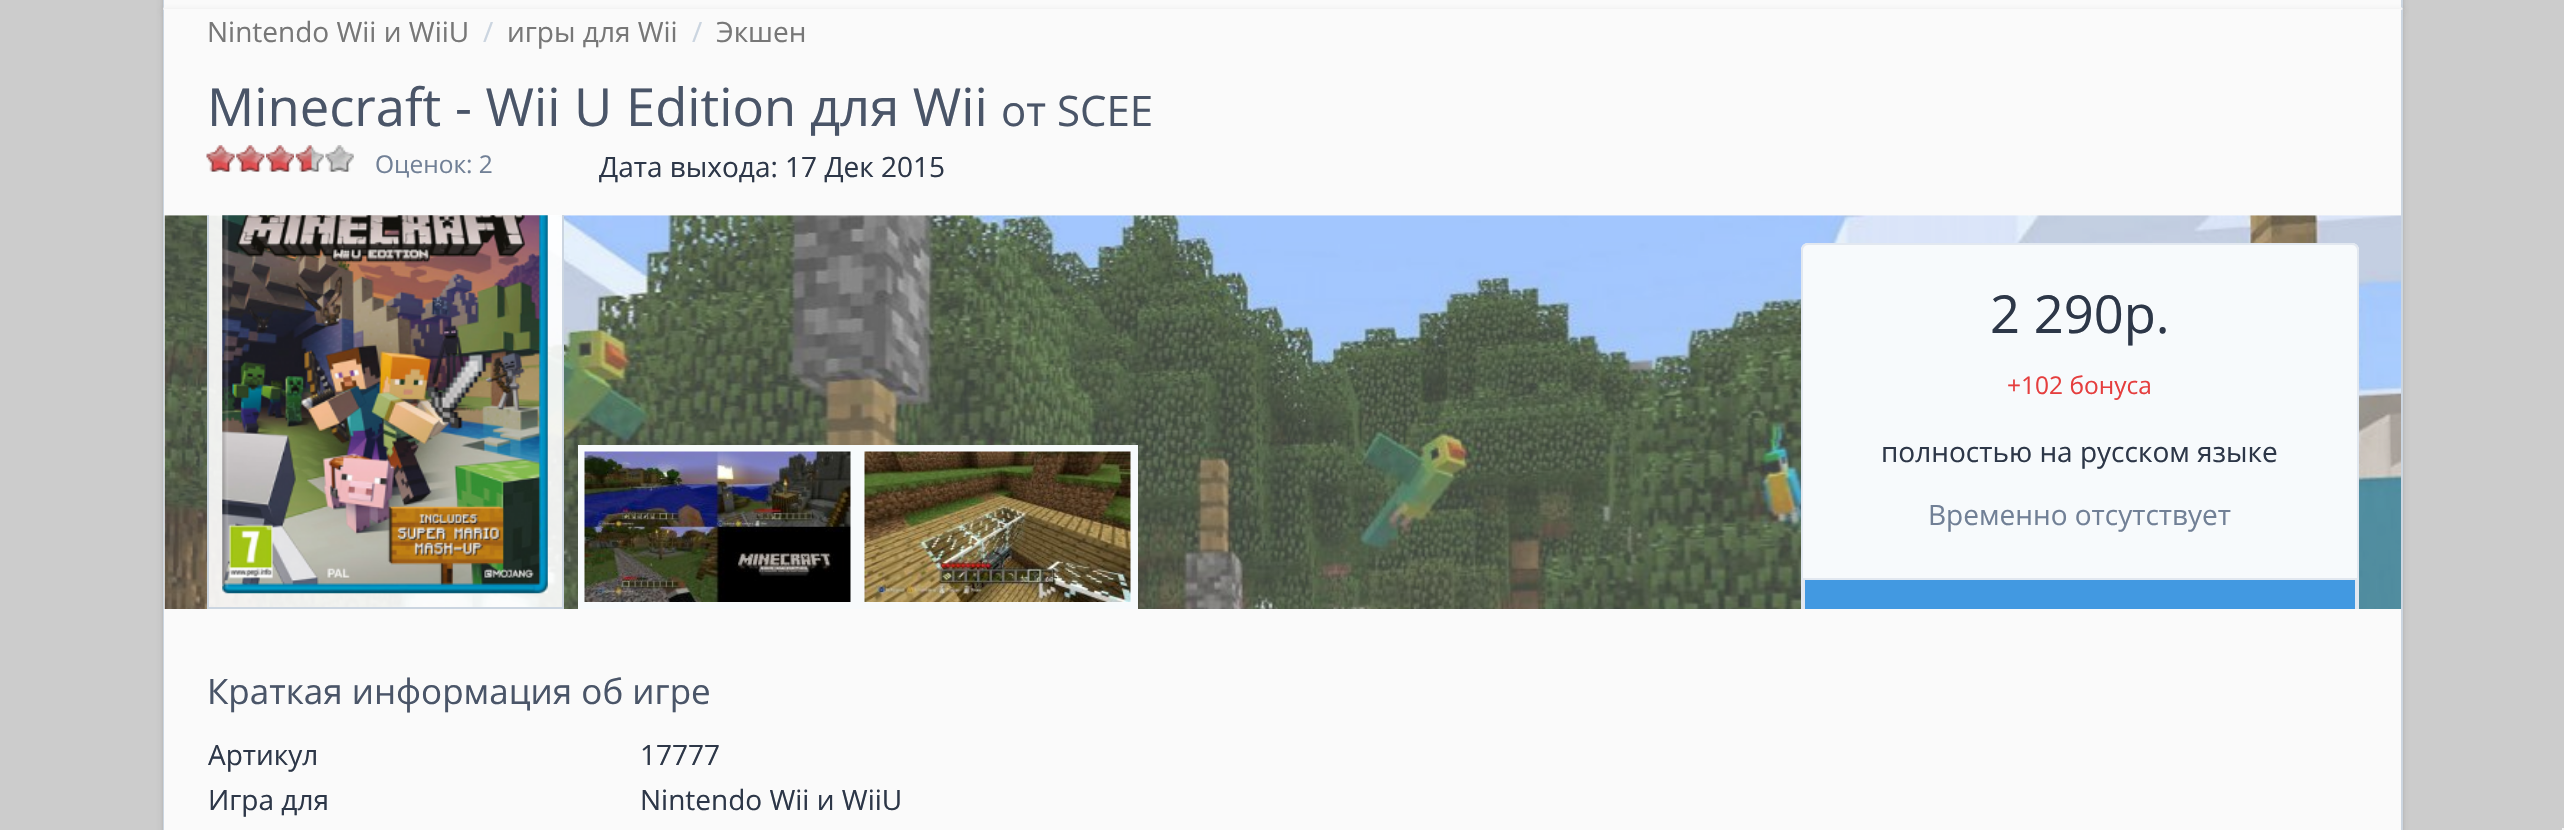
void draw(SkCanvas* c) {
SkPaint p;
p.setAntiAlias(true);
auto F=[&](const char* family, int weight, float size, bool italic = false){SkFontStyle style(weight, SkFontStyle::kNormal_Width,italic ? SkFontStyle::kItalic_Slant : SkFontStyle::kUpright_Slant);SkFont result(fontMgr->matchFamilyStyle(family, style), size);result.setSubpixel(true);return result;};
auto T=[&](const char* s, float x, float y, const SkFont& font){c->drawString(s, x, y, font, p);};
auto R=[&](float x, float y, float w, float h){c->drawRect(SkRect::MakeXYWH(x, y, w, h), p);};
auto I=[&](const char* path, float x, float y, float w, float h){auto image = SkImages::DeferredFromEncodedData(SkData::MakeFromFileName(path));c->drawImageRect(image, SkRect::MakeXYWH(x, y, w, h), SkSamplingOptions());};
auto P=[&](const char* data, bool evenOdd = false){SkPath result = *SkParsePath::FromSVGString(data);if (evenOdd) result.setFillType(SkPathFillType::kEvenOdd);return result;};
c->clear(0xffcccccc);
p.setColor(0x0f000000);
p.setMaskFilter(SkMaskFilter::MakeBlur(kNormal_SkBlurStyle, 2));
c->drawRect(SkRect::MakeXYWH(163,-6,2240,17),p);
p.setMaskFilter(nullptr);
p.setColor(0x1a000000);
p.setMaskFilter(SkMaskFilter::MakeBlur(kNormal_SkBlurStyle, 2.5));
c->drawRect(SkRect::MakeXYWH(163,-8,2240,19),p);
p.setMaskFilter(nullptr);
p.setColor(0xfffafafa);
R(163,0,2240,9);
p.setColor(0xffcbd5e0);
c->drawPath(P("M2403-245v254l-2-2v-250z"),p);
c->drawPath(P("M163 9v-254l1 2v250z"),p);
p.setColor(0x0f000000);
p.setMaskFilter(SkMaskFilter::MakeBlur(kNormal_SkBlurStyle, 2));
c->drawRect(SkRect::MakeXYWH(163,11,2240,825),p);
p.setMaskFilter(nullptr);
p.setColor(0x1a000000);
p.setMaskFilter(SkMaskFilter::MakeBlur(kNormal_SkBlurStyle, 2.5));
c->drawRect(SkRect::MakeXYWH(163,11,2240,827),p);
p.setMaskFilter(nullptr);
p.setColor(0xfffafafa);
R(163,9,2240,821);
p.setColor(0xffcbd5e0);
c->drawPath(P("M2403 9v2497l-2-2v-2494z"),p);
c->drawPath(P("M163 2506v-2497l1 1v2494z"),p);
auto f1 = F("Open Sans",400,28);
p.setColor(0xff777777);
T("Nintendo Wii и WiiU",207,42,f1);
p.setColor(0xffcbd5e0);
T("/",483,42,f1);
p.setColor(0xff777777);
T("игры для Wii",507,42,f1);
p.setColor(0xffcbd5e0);
T("/",692,42,f1);
p.setColor(0xff777777);
T("Экшен",716,42,f1);
auto f2 = F("Open Sans",400,52.5);
p.setColor(0xff4a5568);
T("Minecraft - Wii U Edition для Wii",207,126,f2);
auto f3 = F("Open Sans",400,42);
T("от SCEE",1001,126,f3);
I("1.png",206,145,29,27);
I("2.png",206,145,29,27);
I("3.png",236,145,29,27);
I("4.png",236,145,29,27);
I("5.png",266,145,28,27);
I("6.png",266,145,28,27);
I("7.png",295,145,29,27);
I("8.png",295,145,17,27);
I("9.png",325,145,29,27);
I("10.png",325,145,29,27);
auto f4 = F("Open Sans",400,24.5);
p.setColor(0xff718096);
T("Оценок: 2",375,173,f4);
p.setColor(0xff2d3748);
T("Дата выхода: 17 Дек 2015",599,177,f1);
I("14.png",164,215,2237,394);
p.setColor(0xe6ffffff);
R(209,215,353,392);
c->save();
c->clipRect(SkRect::MakeXYWH(165,215,2236,394));
p.setStroke(true);
p.setStrokeWidth(2);
p.setColor(0xffcbd5e0);
c->drawRect(SkRect::MakeXYWH(208,118,355,490),p);
c->restore();
I("11.png",222,215,326,379);
p.setStroke(false);
p.setColor(0xfff7fafc);
R(578,445,560,164);
I("12.png",584,451,267,151);
I("13.png",864,451,267,151);
c->drawPath(P("M1808 243h544c4 0 7 3 7 7v359h-558v-359c0-4 3-7 7-7z"),p);
c->save();
c->clipRect(SkRect::MakeXYWH(165,215,2236,394));
p.setStroke(true);
p.setColor(0xffe2e8f0);
c->drawRoundRect(SkRect::MakeXYWH(1802,244,556,464),6,6,p);
c->restore();
p.setStroke(false);
p.setColor(0xff2d3748);
T("2 290р.",1990,333,f2);
p.setColor(0xffe53e3e);
T("+102 бонуса",2007,394,f4);
p.setColor(0xff2d3748);
T("полностью на русском языке",1881,462,f1);
p.setColor(0xff718096);
T("Временно отсутствует",1928,525,f1);
p.setColor(0xff4299e1);
R(1805,580,550,29);
c->save();
c->clipRect(SkRect::MakeXYWH(165,215,2236,394));
p.setStroke(true);
p.setColor(0xffe2e8f0);
c->drawRect(SkRect::MakeXYWH(1804,579,552,99),p);
c->restore();
auto f5 = F("Open Sans",400,35);
p.setStroke(false);
p.setColor(0xff4a5568);
T("Краткая информация об игре",207,704,f5);
p.setColor(0xff2d3748);
T("Артикул",208,765,f1);
T("17777",640,765,f1);
T("Игра для",208,810,f1);
T("Nintendo Wii и WiiU",640,810,f1);
p.setColor(0xfff5f5f5);
R(2562,828,2,2);
}
